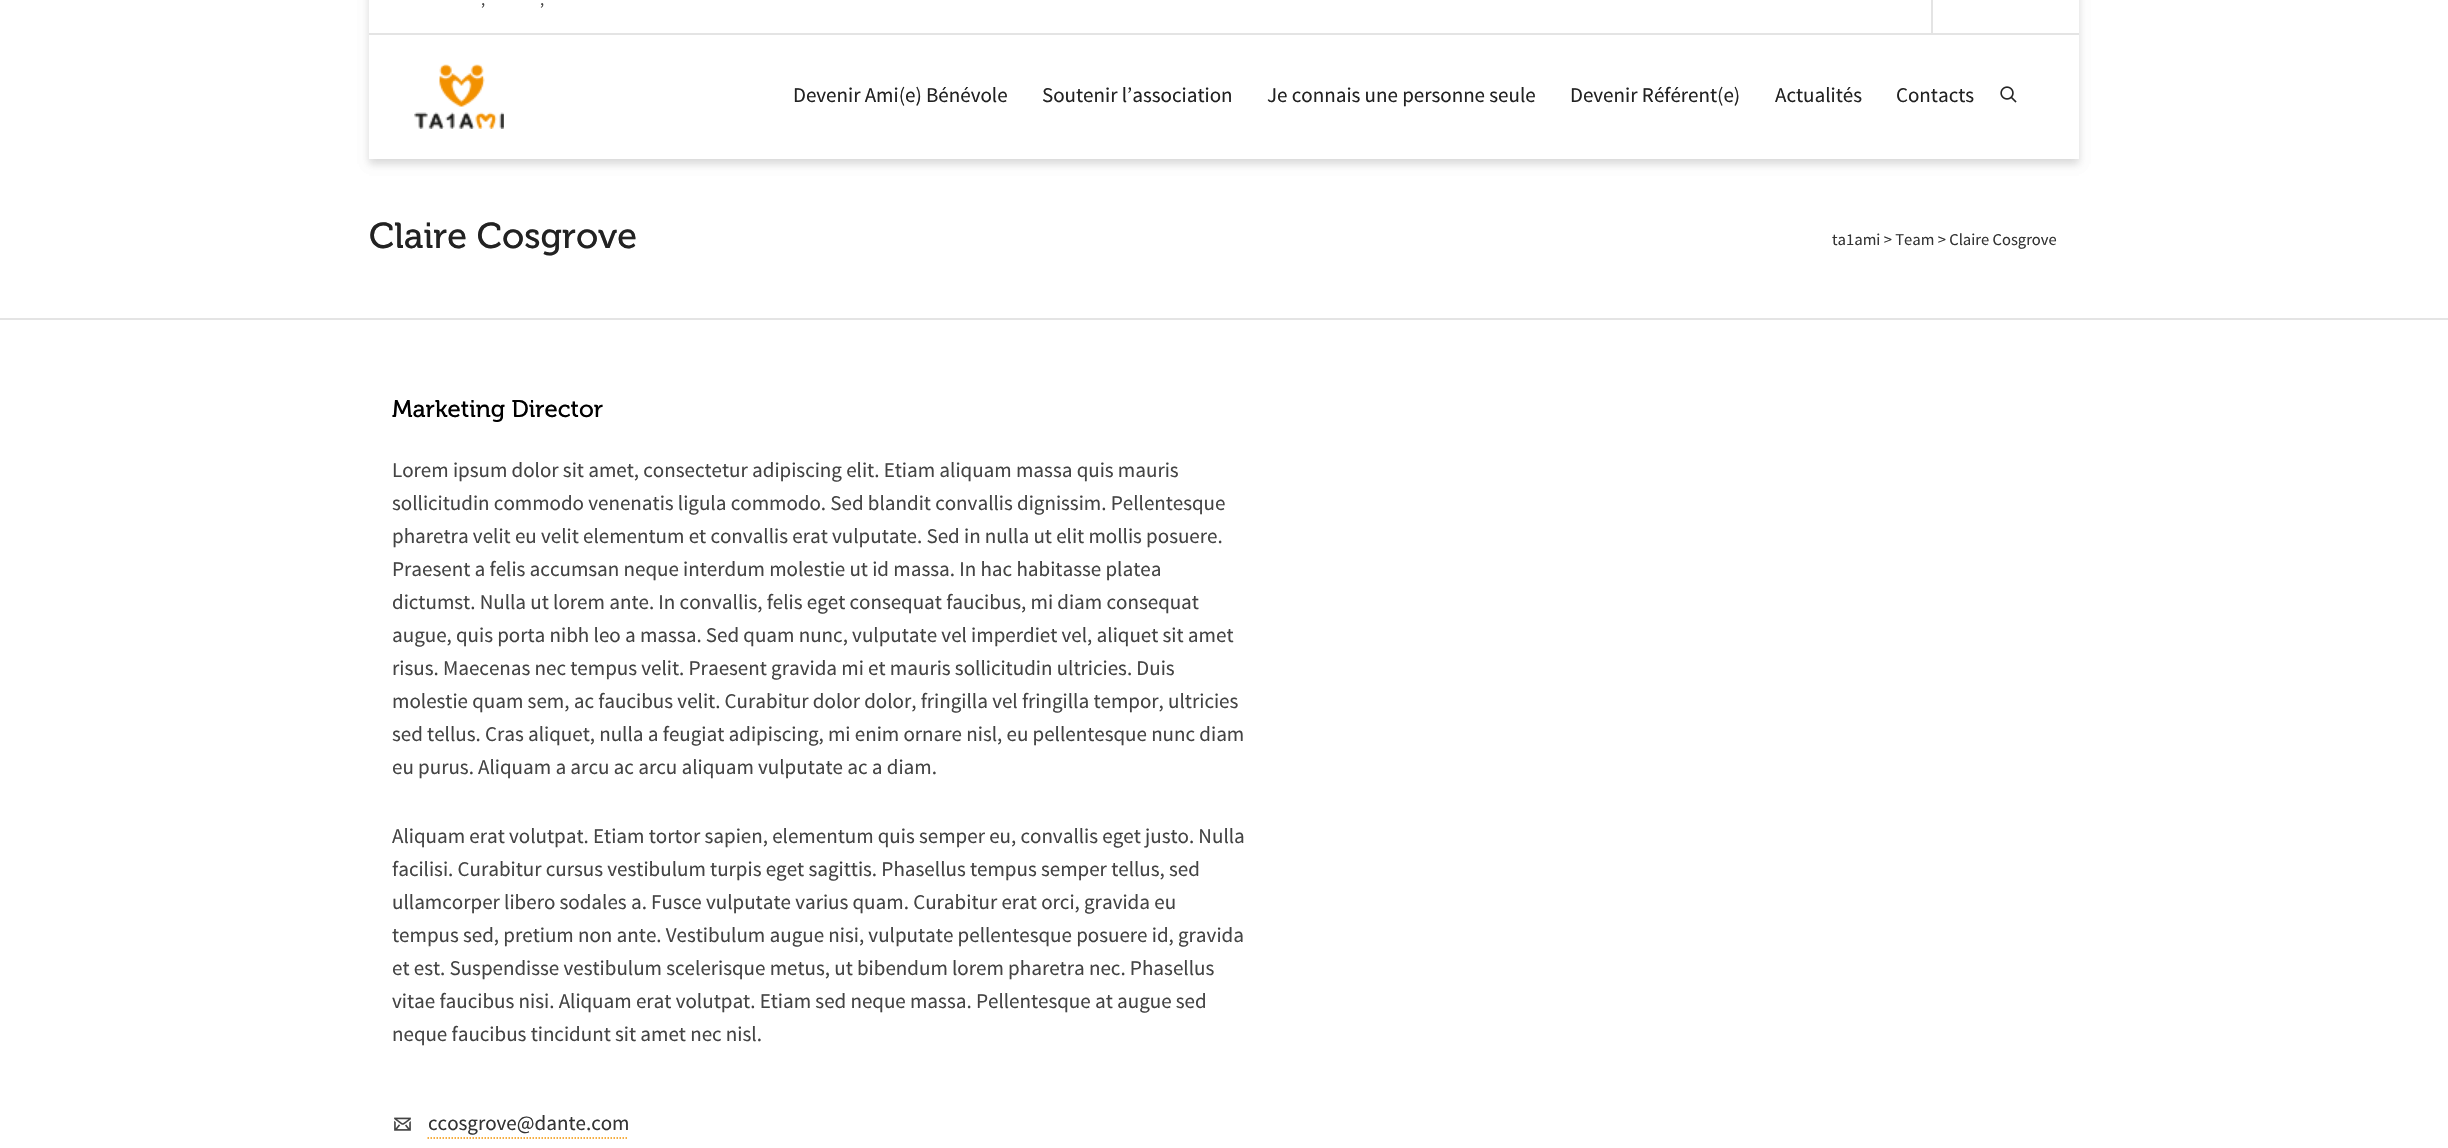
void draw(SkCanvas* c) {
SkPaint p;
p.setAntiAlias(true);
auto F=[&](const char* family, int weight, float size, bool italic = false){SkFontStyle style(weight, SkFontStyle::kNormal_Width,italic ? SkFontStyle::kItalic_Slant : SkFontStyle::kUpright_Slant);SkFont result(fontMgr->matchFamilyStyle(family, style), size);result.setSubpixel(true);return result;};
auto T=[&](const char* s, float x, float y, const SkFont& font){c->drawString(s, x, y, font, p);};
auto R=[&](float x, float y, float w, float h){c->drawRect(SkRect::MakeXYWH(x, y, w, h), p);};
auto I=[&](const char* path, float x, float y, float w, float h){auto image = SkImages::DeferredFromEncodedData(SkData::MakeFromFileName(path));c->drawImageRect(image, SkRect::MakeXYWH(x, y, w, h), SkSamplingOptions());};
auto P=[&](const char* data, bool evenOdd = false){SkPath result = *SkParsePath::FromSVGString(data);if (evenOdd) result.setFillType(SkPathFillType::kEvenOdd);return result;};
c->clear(0xffffffff);
c->save();
c->clipPath(P("M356 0h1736v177h-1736zm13-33h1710v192h-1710z",true),true);
p.setColor(0x1a000000);
p.setMaskFilter(SkMaskFilter::MakeBlur(kNormal_SkBlurStyle, 4));
c->drawRect(SkRect::MakeXYWH(369,-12,1710,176),p);
p.setMaskFilter(nullptr);
p.setColor(0x0d000000);
p.setMaskFilter(SkMaskFilter::MakeBlur(kNormal_SkBlurStyle, 4));
c->drawRect(SkRect::MakeXYWH(369,-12,1710,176),p);
p.setMaskFilter(nullptr);
c->restore();
p.setColor(0xffe4e4e4);
R(369,33,1710,2);
auto f1 = F("Source Sans Pro",400,16.5);
p.setColor(0xff444444);
T(",",481,5,f1);
T(",",540,5,f1);
p.setColor(0xffe4e4e4);
R(1931,0,2,33);
I("1.png",414,64,90,65);
auto f2 = F("Source Sans Pro",400,21);
p.setColor(0xff222222);
T("Devenir Ami(e) Bénévole",793,102,f2);
T("Soutenir l’association",1042,102,f2);
T("Je connais une personne seule",1267,102,f2);
T("Devenir Référent(e)",1570,102,f2);
T("Actualités",1775,102,f2);
T("Contacts",1896,102,f2);
I("2.png",2000,86,17,17);
p.setColor(0xffe4e4e4);
R(0,318,2448,2);
auto f3 = F("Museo",400,36);
p.setColor(0xff222222);
T("Claire Cosgrove",369,248,f3);
p.setColor(0xff333333);
T("ta1ami > Team > Claire Cosgrove",1832,245,f1);
auto f4 = F("Museo",400,24);
p.setColor(0xff000000);
T("Marketing Director",392,417,f4);
p.setColor(0xff444444);
T("Lorem ipsum dolor sit amet, consectetur adipiscing elit. Etiam aliquam massa quis mauris",392,477,f2);
T("sollicitudin commodo venenatis ligula commodo. Sed blandit convallis dignissim. Pellentesque",392,510,f2);
T("pharetra velit eu velit elementum et convallis erat vulputate. Sed in nulla ut elit mollis posuere.",392,543,f2);
T("Praesent a felis accumsan neque interdum molestie ut id massa. In hac habitasse platea",392,576,f2);
T("dictumst. Nulla ut lorem ante. In convallis, felis eget consequat faucibus, mi diam consequat",392,609,f2);
T("augue, quis porta nibh leo a massa. Sed quam nunc, vulputate vel imperdiet vel, aliquet sit amet",392,642,f2);
T("risus. Maecenas nec tempus velit. Praesent gravida mi et mauris sollicitudin ultricies. Duis",392,675,f2);
T("molestie quam sem, ac faucibus velit. Curabitur dolor dolor, fringilla vel fringilla tempor, ultricies",392,708,f2);
T("sed tellus. Cras aliquet, nulla a feugiat adipiscing, mi enim ornare nisl, eu pellentesque nunc diam",392,741,f2);
T("eu purus. Aliquam a arcu ac arcu aliquam vulputate ac a diam.",392,774,f2);
T("Aliquam erat volutpat. Etiam tortor sapien, elementum quis semper eu, convallis eget justo. Nulla",392,843,f2);
T("facilisi. Curabitur cursus vestibulum turpis eget sagittis. Phasellus tempus semper tellus, sed",392,876,f2);
T("ullamcorper libero sodales a. Fusce vulputate varius quam. Curabitur erat orci, gravida eu",392,909,f2);
T("tempus sed, pretium non ante. Vestibulum augue nisi, vulputate pellentesque posuere id, gravida",392,942,f2);
T("et est. Suspendisse vestibulum scelerisque metus, ut bibendum lorem pharetra nec. Phasellus",392,975,f2);
T("vitae faucibus nisi. Aliquam erat volutpat. Etiam sed neque massa. Pellentesque at augue sed",392,1008,f2);
T("neque faucibus tincidunt sit amet nec nisl.",392,1041,f2);
I("3.png",394,1117,17,14);
p.setColor(0xff333333);
T("ccosgrove@dante.com",428,1130,f2);
p.setStroke(true);
p.setStrokeWidth(1.5);
p.setColor(0xfff39200);
p.setPathEffect(SkDashPathEffect::Make({{1.5f,1.5f}}, 0));
c->drawPath(P("M427.5 1138h201"),p);
p.setPathEffect(nullptr);
}
